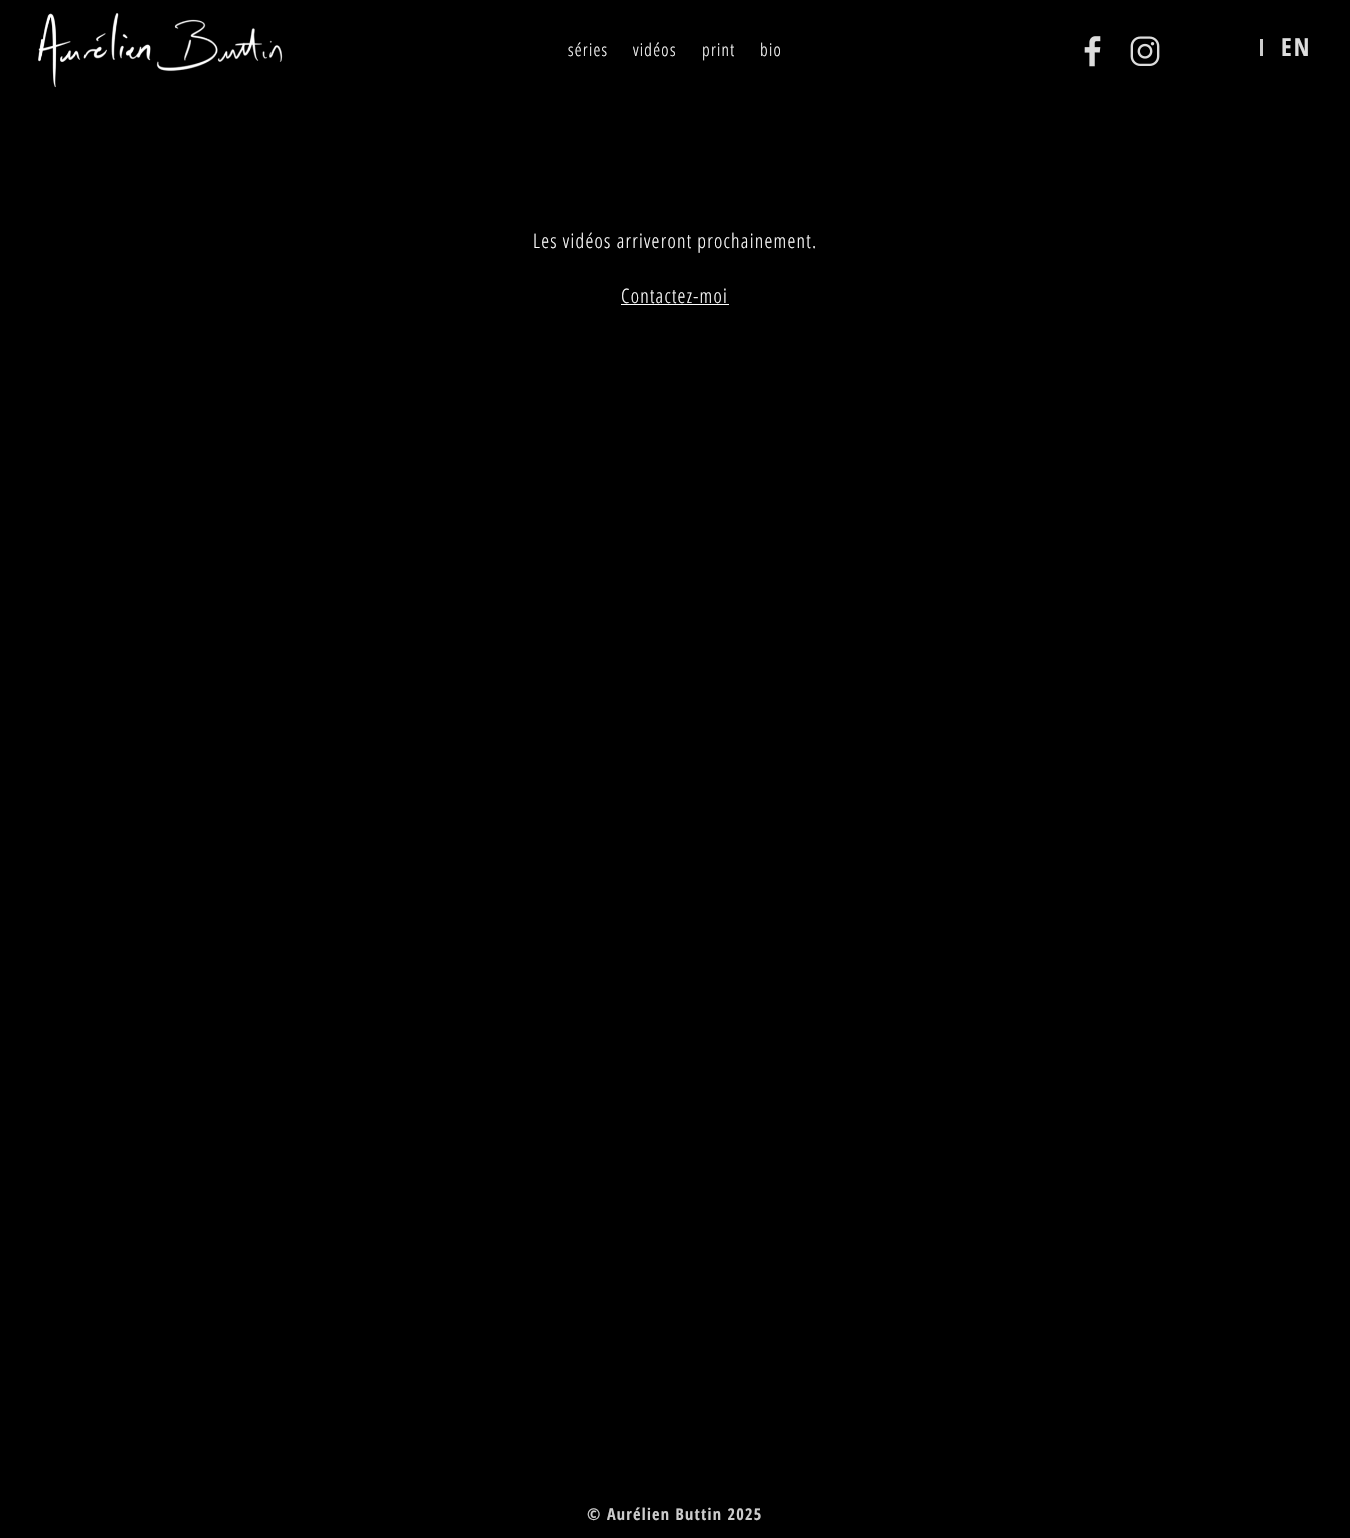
void draw(SkCanvas* c) {
SkPaint p;
p.setAntiAlias(true);
auto F=[&](const char* family, int weight, float size, bool italic = false){SkFontStyle style(weight, SkFontStyle::kNormal_Width,italic ? SkFontStyle::kItalic_Slant : SkFontStyle::kUpright_Slant);SkFont result(fontMgr->matchFamilyStyle(family, style), size);result.setSubpixel(true);return result;};
auto L=[&](const char* s, float x, float y, const SkFont& font, const SkPaint& ink, float letter, float word){std::vector<SkGlyphID> glyphs(font.countText(s, strlen(s), SkTextEncoding::kUTF8));std::vector<float> xs(glyphs.size());font.textToGlyphs(s, strlen(s), SkTextEncoding::kUTF8, glyphs);font.getXPos(glyphs, xs, x);float extra = 0;for (size_t i = 0; i < glyphs.size(); i++) {xs[i] += extra;extra += letter + word * (glyphs[i] == font.unicharToGlyph(' '));}c->drawTextBlob(SkTextBlob::MakeFromPosHGlyphs(glyphs, xs, y, font), 0, 0, ink);};
auto R=[&](float x, float y, float w, float h){c->drawRect(SkRect::MakeXYWH(x, y, w, h), p);};
auto I=[&](const char* path, float x, float y, float w, float h){auto image = SkImages::DeferredFromEncodedData(SkData::MakeFromFileName(path));c->drawImageRect(image, SkRect::MakeXYWH(x, y, w, h), SkSamplingOptions());};
c->clear(0xff000000);
I("1.png",38,13,245,75);
auto f1 = F("Open Sans Condensed",300,17.5);
p.setColor(0xffffffff);
L("séries",568,56,f1,p,1.25,0);
L("vidéos",633,56,f1,p,1.25,0);
L("print",702,56,f1,p,1.25,0);
L("bio",760,56,f1,p,1.25,0);
I("2.png",1084,36,17,31);
I("3.png",1130,36,30,30);
p.setColor(0xffcccccc);
R(1260,39,3,17);
auto f2 = F("Open Sans Condensed",700,25);
p.setColor(0xffdddddd);
L("EN",1281,56,f2,p,2,0);
auto f3 = F("Open Sans Condensed",300,20);
p.setColor(0xffffffff);
L("Les vidéos arriveront prochainement.",533,248,f3,p,1.25,0);
L("Contactez-moi",621,303,f3,p,1.25,0);
R(621,304,108,1);
auto f4 = F("Open Sans Condensed",700,16.25);
p.setColor(0xffcccccc);
L("© Aurélien Buttin 2025",587,1520,f4,p,1.25,0);
}
